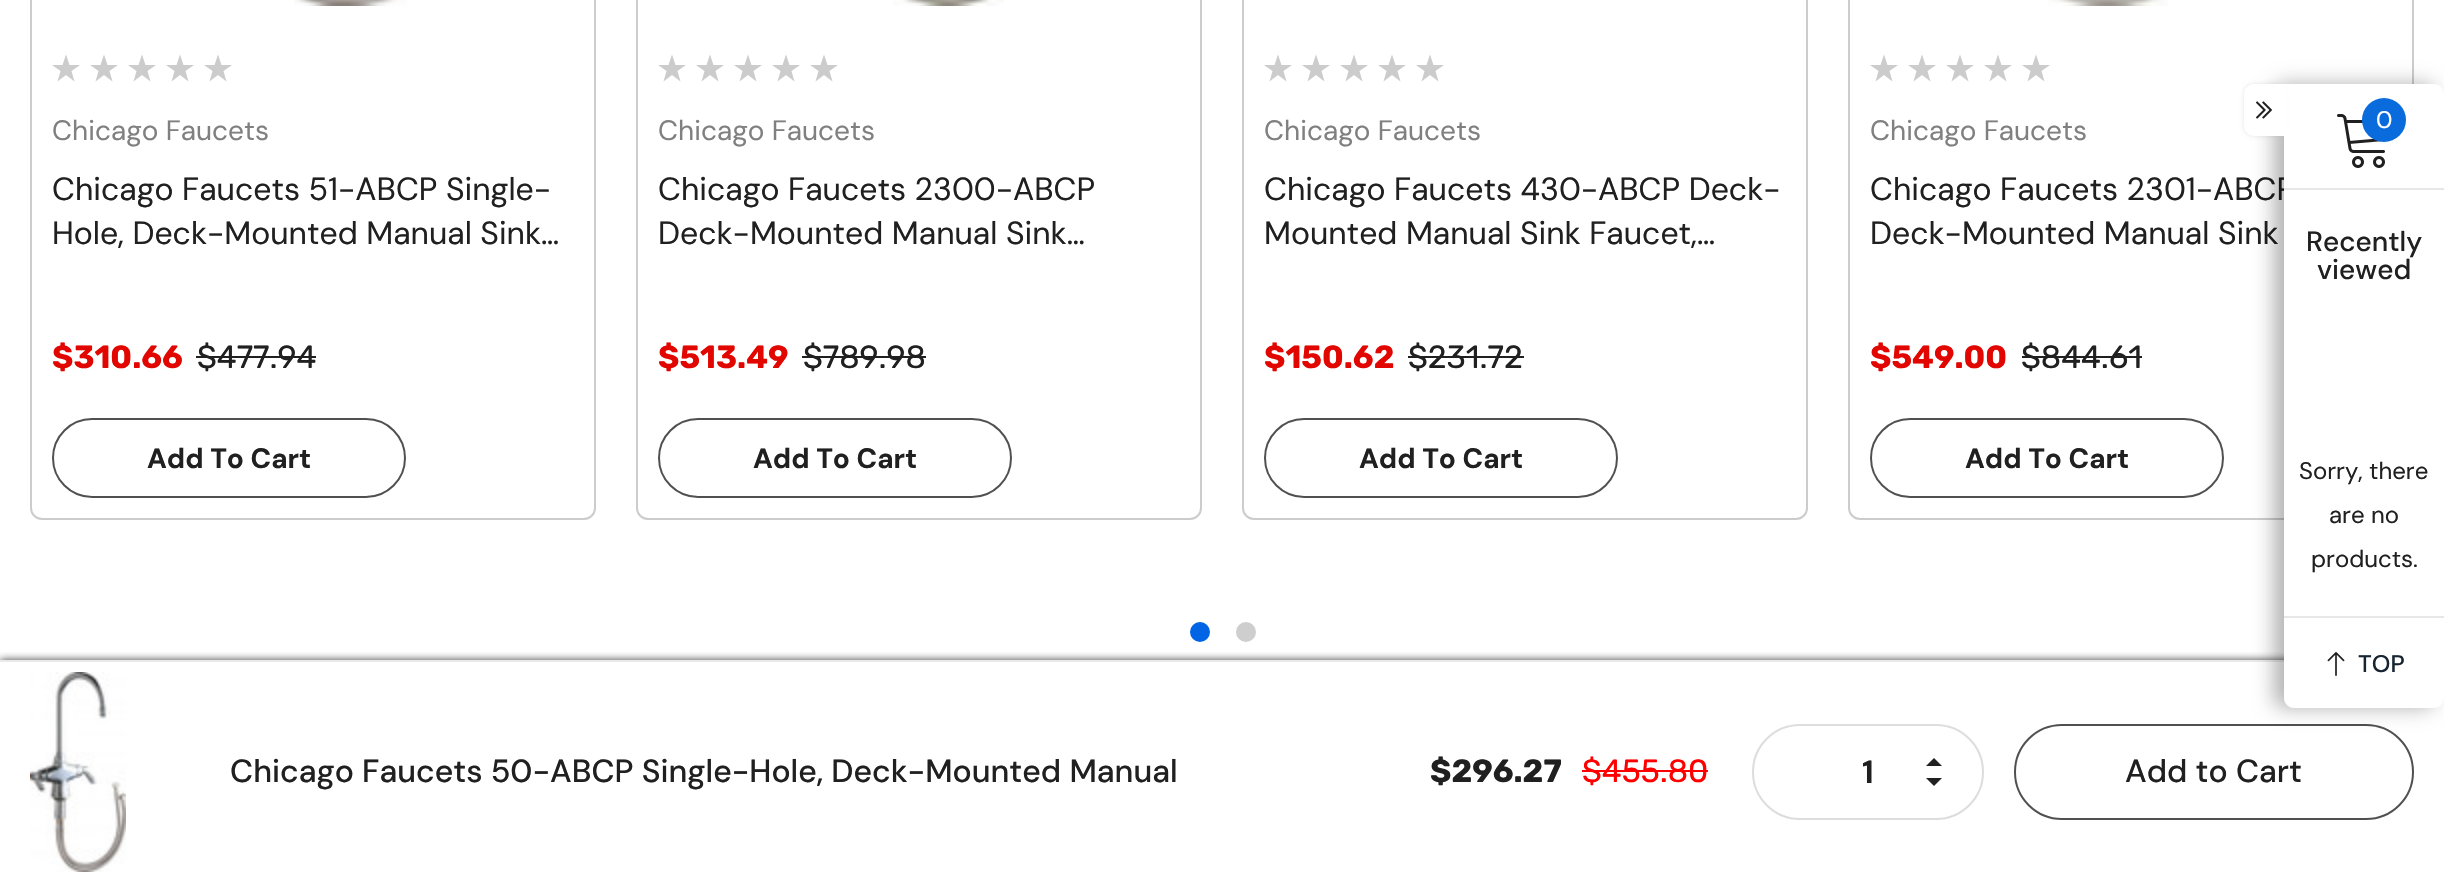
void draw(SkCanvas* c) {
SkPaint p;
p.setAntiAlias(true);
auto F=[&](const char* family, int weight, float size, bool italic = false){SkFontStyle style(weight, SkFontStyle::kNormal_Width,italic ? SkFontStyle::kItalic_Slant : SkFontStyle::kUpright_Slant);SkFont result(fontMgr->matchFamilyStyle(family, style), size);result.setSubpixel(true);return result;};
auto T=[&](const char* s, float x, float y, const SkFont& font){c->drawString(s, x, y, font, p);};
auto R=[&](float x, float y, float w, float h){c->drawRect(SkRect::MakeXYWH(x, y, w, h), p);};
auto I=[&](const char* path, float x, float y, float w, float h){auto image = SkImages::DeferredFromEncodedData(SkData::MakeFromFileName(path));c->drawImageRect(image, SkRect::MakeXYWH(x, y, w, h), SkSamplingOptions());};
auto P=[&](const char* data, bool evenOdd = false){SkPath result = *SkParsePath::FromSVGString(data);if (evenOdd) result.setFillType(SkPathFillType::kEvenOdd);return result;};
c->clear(0xffffffff);
p.setStroke(true);
p.setStrokeWidth(2);
p.setColor(0xffcccccc);
c->drawRoundRect(SkRect::MakeXYWH(31,-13,564,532),11,11,p);
I("1.png",294,0,113,6);
p.setStroke(false);
c->drawPath(P("M66 75l8.5 6.5l-3-10.5l8.5-6h-10.5l-3.5-10.5l-3.5 10.5h-10.5l8.5 6l-3 10.5z"),p);
c->drawPath(P("M104 75l8.5 6.5l-3-10.5l8.5-6h-10.5l-3.5-10.5l-3.5 10.5h-10.5l8.5 6l-3 10.5z"),p);
c->drawPath(P("M142 75l8.5 6.5l-3-10.5l8.5-6h-10.5l-3.5-10.5l-3.5 10.5h-10.5l8.5 6l-3 10.5z"),p);
c->drawPath(P("M180 75l8.5 6.5l-3-10.5l8.5-6h-10.5l-3.5-10.5l-3.5 10.5h-10.5l8.5 6l-3 10.5z"),p);
c->drawPath(P("M218 75l8.5 6.5l-3-10.5l8.5-6h-10.5l-3.5-10.5l-3.5 10.5h-10.5l8.5 6l-3 10.5z"),p);
auto f1 = F("DM Sans",400,28);
p.setColor(0xff808080);
T("Chicago Faucets",52,140,f1);
auto f2 = F("DM Sans",400,32);
p.setColor(0xff202020);
T("Chicago Faucets 51-ABCP Single-",52,200,f2);
T("Hole, Deck-Mounted Manual Sink…",52,244,f2);
auto f3 = F("Rubik",700,32);
p.setColor(0xffe10600);
T("$310.66",52,368,f3);
auto f4 = F("Rubik",400,32);
p.setColor(0xff202020);
T("$477.94",197,368,f4);
R(196,356,120,2);
p.setStroke(true);
p.setColor(0xff505050);
c->drawRoundRect(SkRect::MakeXYWH(53,419,352,78),39,39,p);
auto f5 = F("DM Sans",700,28);
p.setStroke(false);
p.setColor(0xff202020);
T("Add To Cart",147,468,f5);
p.setStroke(true);
p.setColor(0xffcccccc);
c->drawRoundRect(SkRect::MakeXYWH(637,-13,564,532),11,11,p);
I("2.png",893,0,111,6);
p.setStroke(false);
c->drawPath(P("M672 75l8.5 6.5l-3-10.5l8.5-6h-10.5l-3.5-10.5l-3.5 10.5h-10.5l8.5 6l-3 10.5z"),p);
c->drawPath(P("M710 75l8.5 6.5l-3-10.5l8.5-6h-10.5l-3.5-10.5l-3.5 10.5h-10.5l8.5 6l-3 10.5z"),p);
c->drawPath(P("M748 75l8.5 6.5l-3-10.5l8.5-6h-10.5l-3.5-10.5l-3.5 10.5h-10.5l8.5 6l-3 10.5z"),p);
c->drawPath(P("M786 75l8.5 6.5l-3-10.5l8.5-6h-10.5l-3.5-10.5l-3.5 10.5h-10.5l8.5 6l-3 10.5z"),p);
c->drawPath(P("M824 75l8.5 6.5l-3-10.5l8.5-6h-10.5l-3.5-10.5l-3.5 10.5h-10.5l8.5 6l-3 10.5z"),p);
p.setColor(0xff808080);
T("Chicago Faucets",658,140,f1);
p.setColor(0xff202020);
T("Chicago Faucets 2300-ABCP",658,200,f2);
T("Deck-Mounted Manual Sink…",658,244,f2);
p.setColor(0xffe10600);
T("$513.49",658,368,f3);
p.setColor(0xff202020);
T("$789.98",803,368,f4);
R(802,356,124,2);
p.setStroke(true);
p.setColor(0xff505050);
c->drawRoundRect(SkRect::MakeXYWH(659,419,352,78),39,39,p);
p.setStroke(false);
p.setColor(0xff202020);
T("Add To Cart",753,468,f5);
p.setStroke(true);
p.setColor(0xffcccccc);
c->drawRoundRect(SkRect::MakeXYWH(1243,-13,564,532),11,11,p);
p.setStroke(false);
c->drawPath(P("M1278 75l8.5 6.5l-3-10.5l8.5-6h-10.5l-3.5-10.5l-3.5 10.5h-10.5l8.5 6l-3 10.5z"),p);
c->drawPath(P("M1316 75l8.5 6.5l-3-10.5l8.5-6h-10.5l-3.5-10.5l-3.5 10.5h-10.5l8.5 6l-3 10.5z"),p);
c->drawPath(P("M1354 75l8.5 6.5l-3-10.5l8.5-6h-10.5l-3.5-10.5l-3.5 10.5h-10.5l8.5 6l-3 10.5z"),p);
c->drawPath(P("M1392 75l8.5 6.5l-3-10.5l8.5-6h-10.5l-3.5-10.5l-3.5 10.5h-10.5l8.5 6l-3 10.5z"),p);
c->drawPath(P("M1430 75l8.5 6.5l-3-10.5l8.5-6h-10.5l-3.5-10.5l-3.5 10.5h-10.5l8.5 6l-3 10.5z"),p);
p.setColor(0xff808080);
T("Chicago Faucets",1264,140,f1);
p.setColor(0xff202020);
T("Chicago Faucets 430-ABCP Deck-",1264,200,f2);
T("Mounted Manual Sink Faucet,…",1264,244,f2);
p.setColor(0xffe10600);
T("$150.62",1264,368,f3);
p.setColor(0xff202020);
T("$231.72",1408,368,f4);
R(1408,356,116,2);
p.setStroke(true);
p.setColor(0xff505050);
c->drawRoundRect(SkRect::MakeXYWH(1265,419,352,78),39,39,p);
p.setStroke(false);
p.setColor(0xff202020);
T("Add To Cart",1359,468,f5);
p.setStroke(true);
p.setColor(0xffcccccc);
c->drawRoundRect(SkRect::MakeXYWH(1849,-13,564,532),11,11,p);
I("3.png",2048,0,120,6);
p.setStroke(false);
c->drawPath(P("M1884 75l8.5 6.5l-3-10.5l8.5-6h-10.5l-3.5-10.5l-3.5 10.5h-10.5l8.5 6l-3 10.5z"),p);
c->drawPath(P("M1922 75l8.5 6.5l-3-10.5l8.5-6h-10.5l-3.5-10.5l-3.5 10.5h-10.5l8.5 6l-3 10.5z"),p);
c->drawPath(P("M1960 75l8.5 6.5l-3-10.5l8.5-6h-10.5l-3.5-10.5l-3.5 10.5h-10.5l8.5 6l-3 10.5z"),p);
c->drawPath(P("M1998 75l8.5 6.5l-3-10.5l8.5-6h-10.5l-3.5-10.5l-3.5 10.5h-10.5l8.5 6l-3 10.5z"),p);
c->drawPath(P("M2036 75l8.5 6.5l-3-10.5l8.5-6h-10.5l-3.5-10.5l-3.5 10.5h-10.5l8.5 6l-3 10.5z"),p);
p.setColor(0xff808080);
T("Chicago Faucets",1870,140,f1);
p.setColor(0xff202020);
T("Chicago Faucets 2301-ABCP",1870,200,f2);
T("Deck-Mounted Manual Sink",1870,244,f2);
p.setColor(0xffe10600);
T("$549.00",1870,368,f3);
p.setColor(0xff202020);
T("$844.61",2021,368,f4);
R(2022,356,120,2);
p.setStroke(true);
p.setColor(0xff505050);
c->drawRoundRect(SkRect::MakeXYWH(1871,419,352,78),39,39,p);
p.setStroke(false);
p.setColor(0xff202020);
T("Add To Cart",1965,468,f5);
p.setColor(0xff0064e4);
c->drawCircle(1200,632,9,p);
p.setStroke(true);
c->drawCircle(1200,632,9,p);
p.setStroke(false);
p.setColor(0xffcecece);
c->drawCircle(1246,632,9,p);
p.setStroke(true);
c->drawCircle(1246,632,9,p);
c->save();
c->clipRect(SkRect::MakeXYWH(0,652,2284,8));
p.setStroke(false);
p.setColor(0xff3c3838);
p.setMaskFilter(SkMaskFilter::MakeBlur(kNormal_SkBlurStyle, 4));
c->drawRect(SkRect::MakeXYWH(0,660,2444,222),p);
p.setMaskFilter(nullptr);
c->restore();
p.setColor(0xffeaeaea);
R(0,660,2284,2);
I("4.png",30,672,96,200);
auto f6 = F("DM Sans",500,32);
p.setColor(0xff202020);
T("Chicago Faucets 50-ABCP Single-Hole, Deck-Mounted Manual",230,782,f6);
T("$296.27",1430,782,f3);
p.setColor(0xffff0000);
T("$455.80",1582,782,f4);
R(1582,770,126,2);
p.setStroke(true);
p.setColor(0xffdddddd);
c->drawRoundRect(SkRect::MakeXYWH(1753,725,230,94),47,47,p);
auto f7 = F("DM Sans",700,32);
p.setStroke(false);
p.setColor(0xff202020);
T("1",1862,783,f7);
c->drawPath(P("M1926 778h16l-8 8zm16-12h-16l8-8z"),p);
p.setStroke(true);
p.setColor(0xff505050);
c->drawRoundRect(SkRect::MakeXYWH(2015,725,398,94),47,47,p);
p.setStroke(false);
p.setColor(0xff202020);
T("Add to Cart",2125,782,f6);
p.setColor(0x4d000000);
p.setMaskFilter(SkMaskFilter::MakeBlur(kNormal_SkBlurStyle, 10));
c->drawRoundRect(SkRect::MakeXYWH(2274,84,160,624),10,10,p);
p.setMaskFilter(nullptr);
p.setColor(0xffffffff);
c->drawPath(P("M2284 84h150c5.5 0 10 4.5 10 10v604c0 5.5-4.5 10-10 10h-140c-5.5 0-10-4.5-10-10z"),p);
p.setColor(0x1a000000);
p.setMaskFilter(SkMaskFilter::MakeBlur(kNormal_SkBlurStyle, 2));
c->drawRoundRect(SkRect::MakeXYWH(2244,84,40,52),10,10,p);
p.setMaskFilter(nullptr);
p.setColor(0xffffffff);
c->drawPath(P("M2254 84h30v52h-30c-5.5 0-10-4.5-10-10v-32c0-5.5 4.5-10 10-10z"),p);
I("5.png",2256,101,16,18);
R(2284,86,3,52);
I("6.png",2337,114,48,54);
p.setColor(0xff0a6cdc);
c->drawCircle(2384,120,22,p);
auto f8 = F("DM Sans",400,24);
p.setColor(0xffffffff);
T("0",2376,128,f8);
p.setColor(0xffe7e7e7);
R(2284,188,160,2);
R(2284,616,160,2);
auto f9 = F("DM Sans",500,28);
p.setColor(0xff202020);
T("Recently",2306,251,f9);
T("viewed",2317,279,f9);
T("Sorry, there",2299,479,f8);
T("are no",2329,523,f8);
T("products.",2311,567,f8);
I("7.png",2327,652,18,24);
auto f10 = F("DM Sans",500,24);
p.setColor(0xff172532);
T("TOP",2358,672,f10);
}
